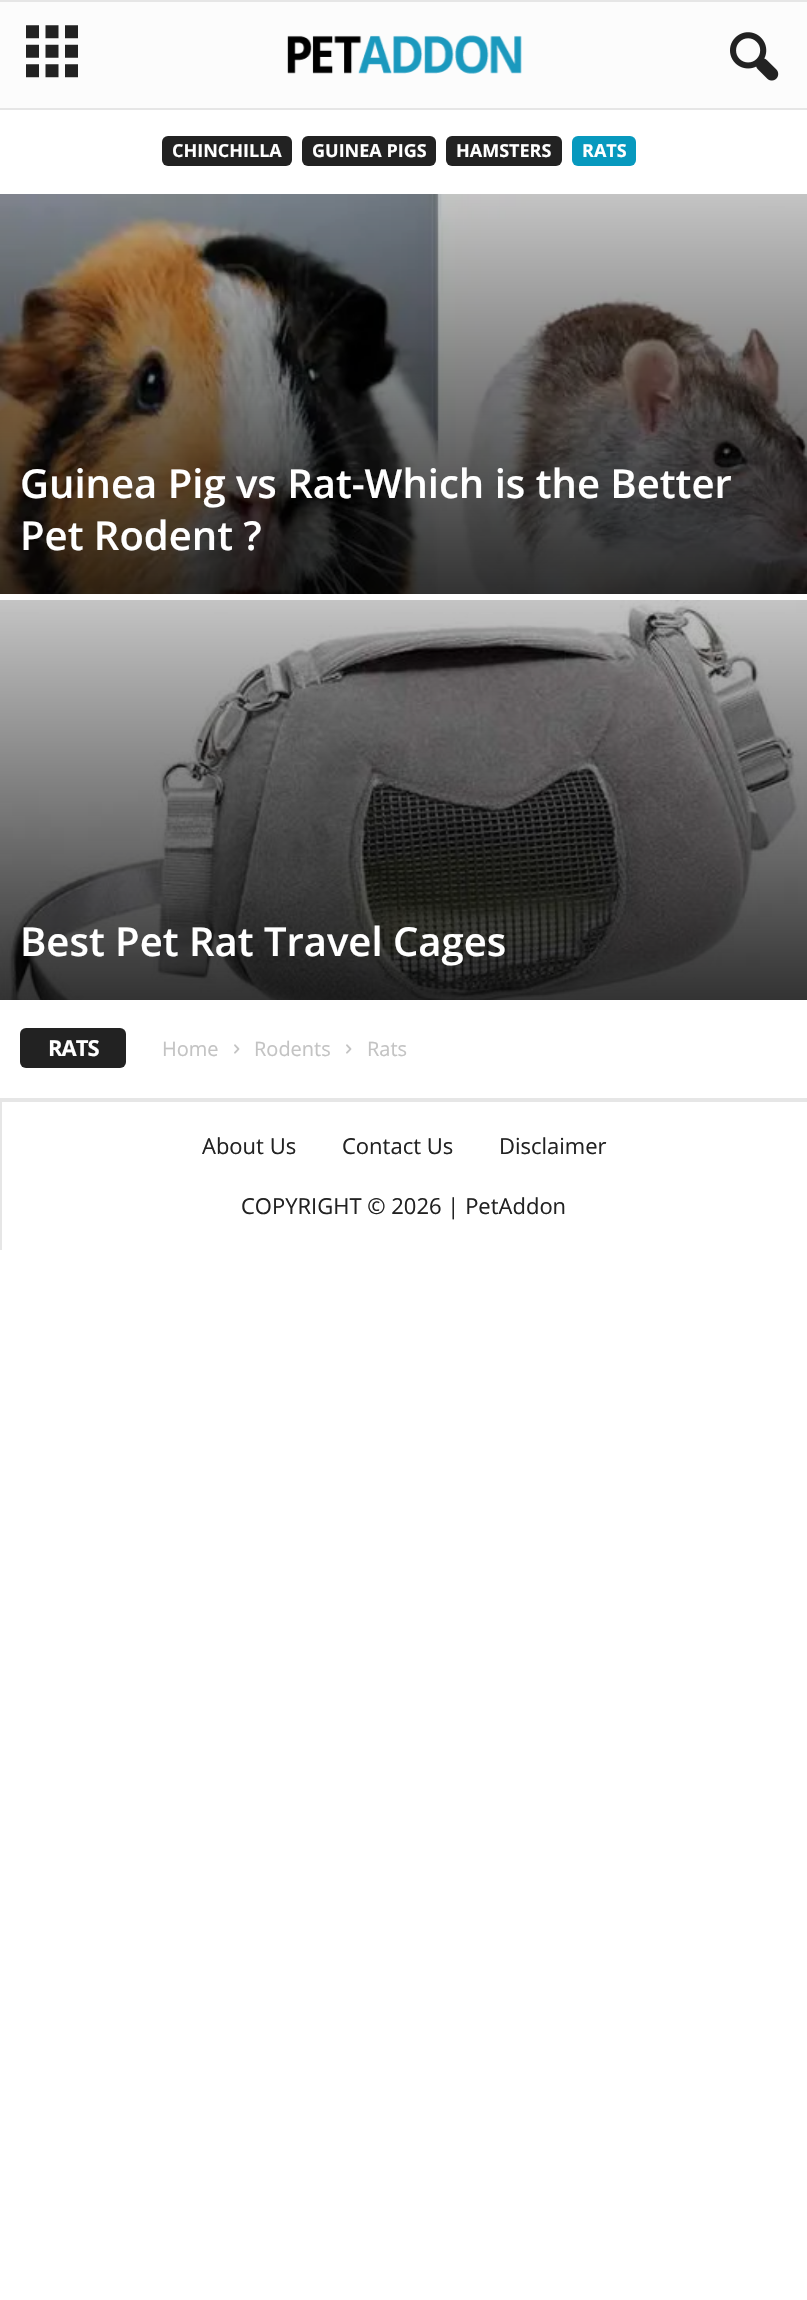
void draw(SkCanvas* c) {
SkPaint p;
p.setAntiAlias(true);
auto F=[&](const char* family, int weight, float size, bool italic = false){SkFontStyle style(weight, SkFontStyle::kNormal_Width,italic ? SkFontStyle::kItalic_Slant : SkFontStyle::kUpright_Slant);SkFont result(fontMgr->matchFamilyStyle(family, style), size);result.setSubpixel(true);return result;};
auto T=[&](const char* s, float x, float y, const SkFont& font){c->drawString(s, x, y, font, p);};
auto L=[&](const char* s, float x, float y, const SkFont& font, const SkPaint& ink, float letter, float word){std::vector<SkGlyphID> glyphs(font.countText(s, strlen(s), SkTextEncoding::kUTF8));std::vector<float> xs(glyphs.size());font.textToGlyphs(s, strlen(s), SkTextEncoding::kUTF8, glyphs);font.getXPos(glyphs, xs, x);float extra = 0;for (size_t i = 0; i < glyphs.size(); i++) {xs[i] += extra;extra += letter + word * (glyphs[i] == font.unicharToGlyph(' '));}c->drawTextBlob(SkTextBlob::MakeFromPosHGlyphs(glyphs, xs, y, font), 0, 0, ink);};
auto R=[&](float x, float y, float w, float h){c->drawRect(SkRect::MakeXYWH(x, y, w, h), p);};
auto Q=[&](float x, float y, float w, float h, float radius){c->drawRoundRect(SkRect::MakeXYWH(x, y, w, h), radius, radius, p);};
auto I=[&](const char* path, float x, float y, float w, float h){auto image = SkImages::DeferredFromEncodedData(SkData::MakeFromFileName(path));c->drawImageRect(image, SkRect::MakeXYWH(x, y, w, h), SkSamplingOptions());};
c->clear(0xffffffff);
p.setColor(0xfffcfcfc);
R(0,2,807,106);
p.setColor(0xffe6e6e6);
R(0,0,807,2);
R(0,108,807,2);
I("1.png",26,25,52,53);
I("2.png",287,35,235,39);
I("3.png",730,32,49,49);
p.setColor(0xff222222);
Q(162,136,130,30,6);
auto f1 = F("Open Sans",700,18);
p.setColor(0xffffffff);
T("CHINCHILLA",172,157,f1);
p.setColor(0xff222222);
Q(302,136,134,30,6);
p.setColor(0xffffffff);
T("GUINEA PIGS",312,157,f1);
p.setColor(0xff222222);
Q(446,136,116,30,6);
p.setColor(0xffffffff);
T("HAMSTERS",456,157,f1);
p.setColor(0xff0799be);
Q(572,136,64,30,6);
p.setColor(0xffffffff);
T("RATS",582,157,f1);
I("4.png",0,194,807,400);
auto f2 = F("Open Sans",600,40);
T("Guinea Pig vs Rat-Which is the Better",20,498,f2);
T("Pet Rodent ?",20,550,f2);
I("5.png",0,600,807,400);
T("Best Pet Rat Travel Cages",20,956,f2);
p.setColor(0xff222222);
Q(20,1028,106,40,6);
auto f3 = F("Open Sans",700,22);
p.setColor(0xffffffff);
L("RATS",48,1056,f3,p,-1,0);
auto f4 = F("Open Sans",400,20);
p.setColor(0xffc3c3c3);
T("Home",162,1056,f4);
I("6.png",234,1044,6,10);
T("Rodents",254,1056,f4);
I("6.png",346,1044,6,10);
T("Rats",367,1056,f4);
p.setColor(0xffe6e6e6);
R(0,1098,807,4);
R(0,1102,2,148);
auto f5 = F("Open Sans",400,22);
p.setColor(0xff222222);
T("About Us",202,1154,f5);
T("Contact Us",342,1154,f5);
T("Disclaimer",499,1154,f5);
T("COPYRIGHT © 2026 | PetAddon",241,1214,f5);
}
